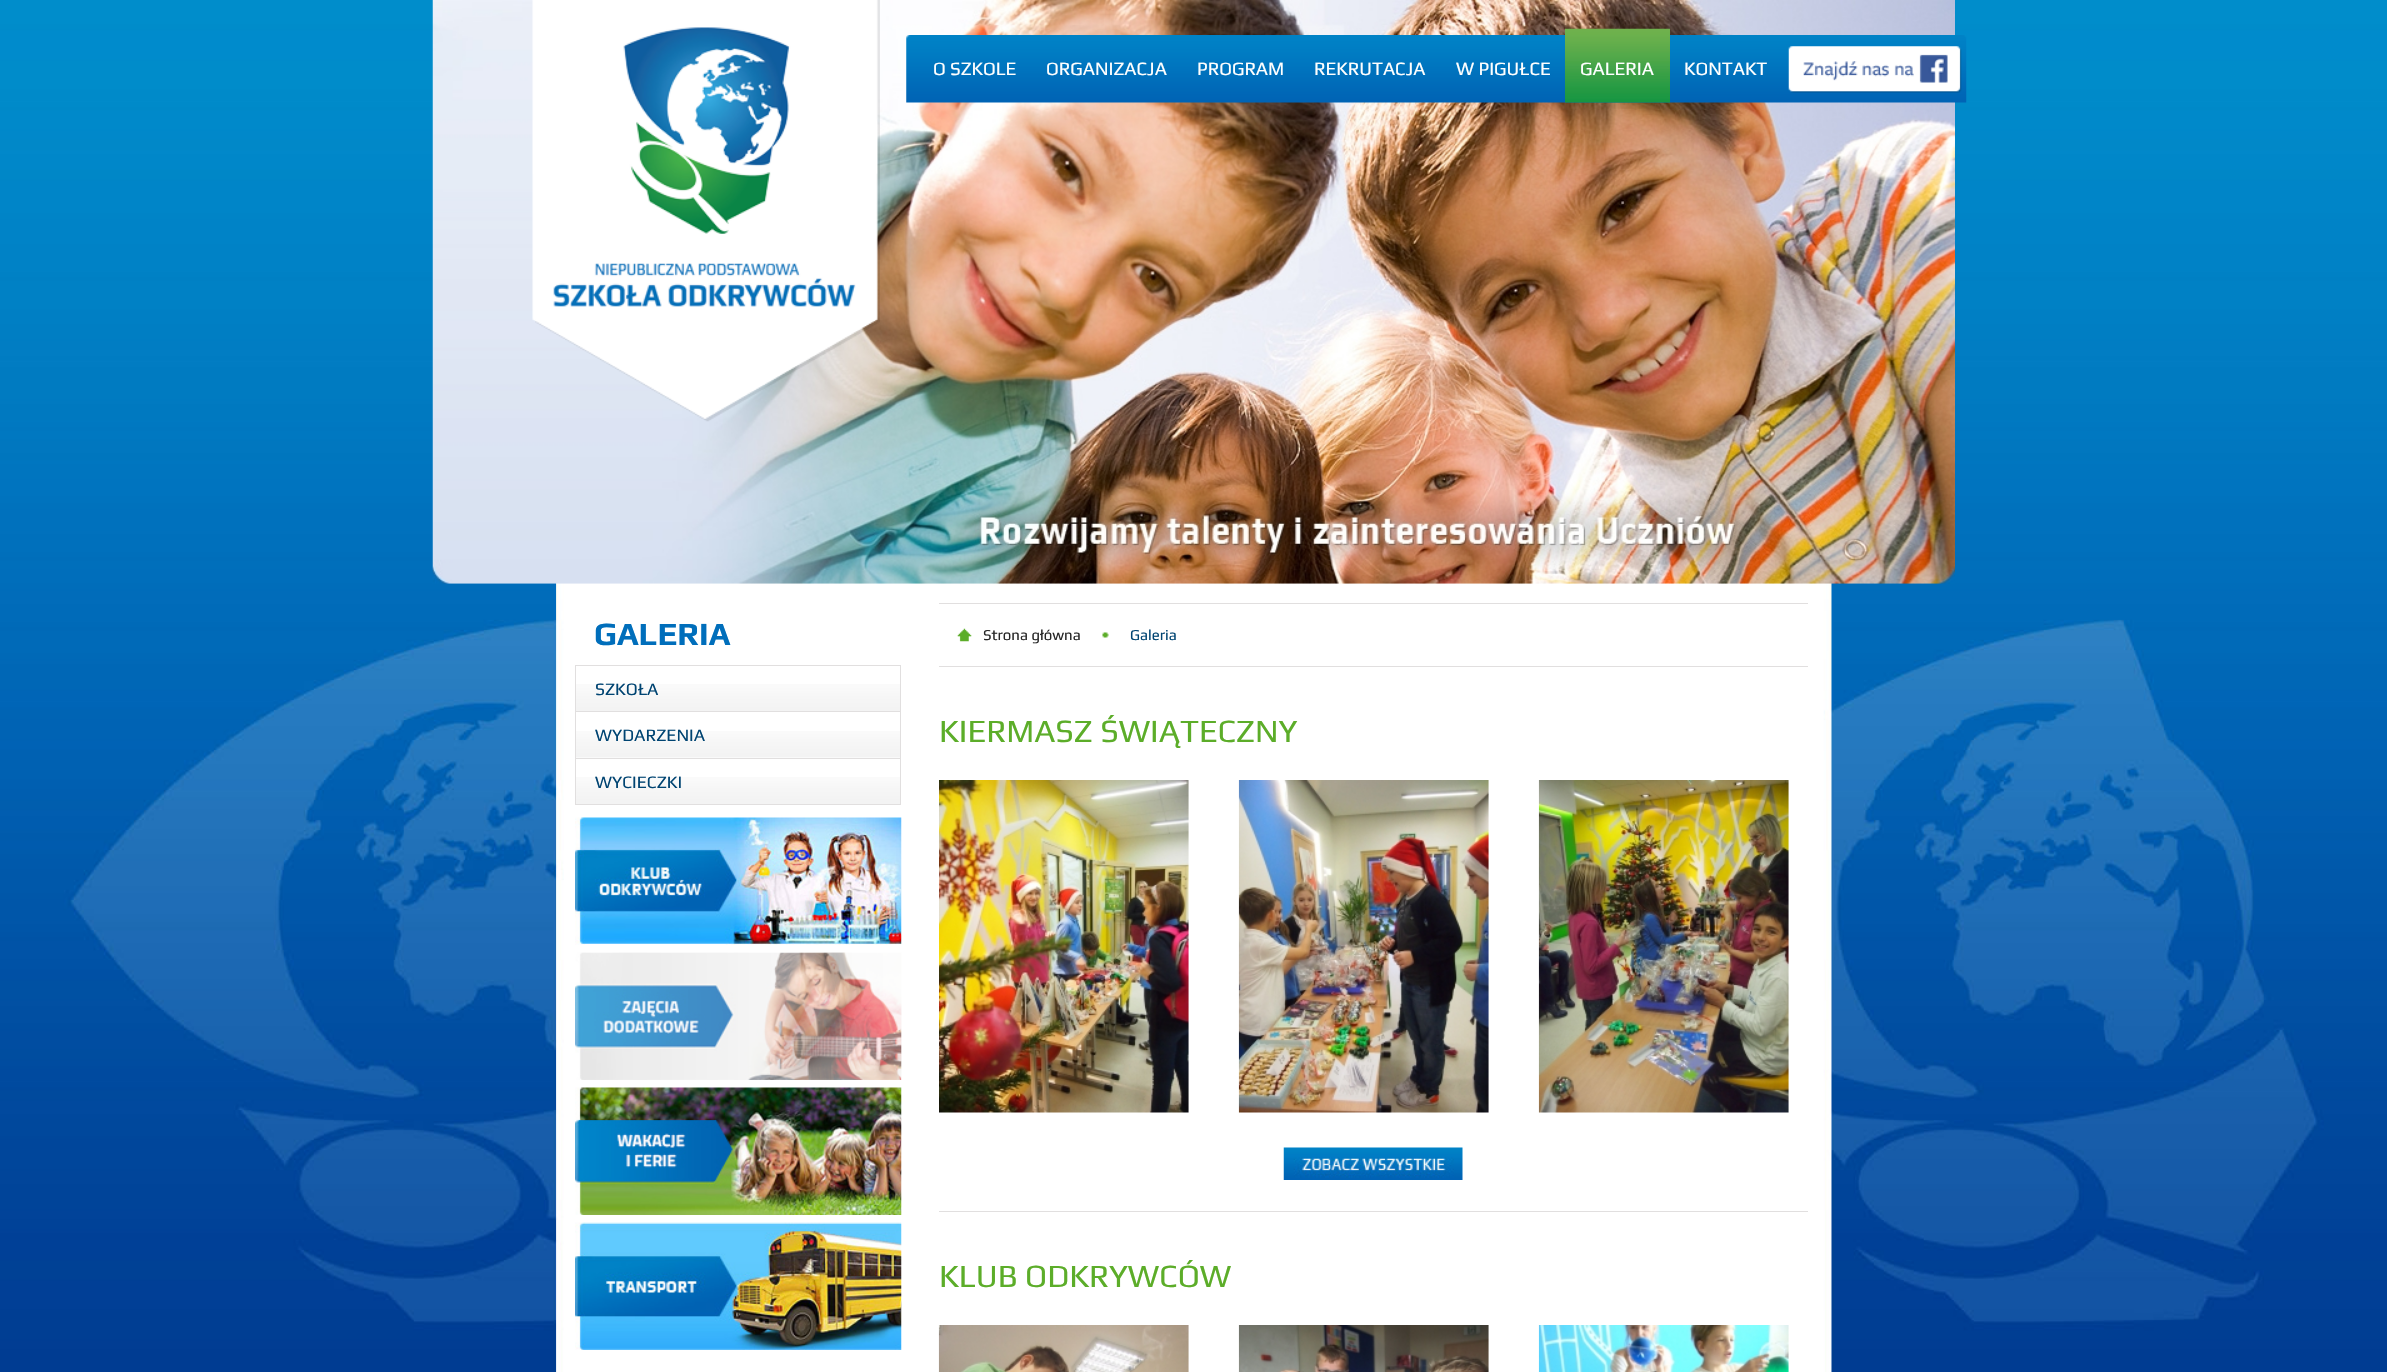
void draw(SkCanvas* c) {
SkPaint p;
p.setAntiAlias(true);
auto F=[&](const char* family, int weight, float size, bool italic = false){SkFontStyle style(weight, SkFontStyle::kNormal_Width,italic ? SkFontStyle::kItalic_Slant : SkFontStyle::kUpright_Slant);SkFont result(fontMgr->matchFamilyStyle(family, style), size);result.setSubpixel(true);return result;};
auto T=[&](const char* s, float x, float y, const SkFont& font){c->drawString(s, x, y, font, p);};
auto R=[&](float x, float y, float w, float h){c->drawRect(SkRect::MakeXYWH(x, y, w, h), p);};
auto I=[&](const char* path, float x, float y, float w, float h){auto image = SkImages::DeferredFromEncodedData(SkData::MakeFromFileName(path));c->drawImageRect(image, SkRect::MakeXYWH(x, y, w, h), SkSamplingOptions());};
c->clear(0xffffffff);
I("1.png",0,0,2387,1372);
I("2.png",556,583,1276,789);
I("3.png",432,0,1523,584);
I("4.png",532,0,348,422);
I("5.png",906,35,1061,68);
auto f1 = F("Play",400,18.75);
p.setColor(0xffffffff);
T("O SZKOLE",933,75,f1);
T("ORGANIZACJA",1046,75,f1);
T("PROGRAM",1197,75,f1);
T("REKRUTACJA",1314,75,f1);
T("W PIGUŁCE",1456,75,f1);
I("6.png",1565,28,105,75);
T("GALERIA",1580,75,f1);
T("KONTAKT",1684,75,f1);
I("7.png",1788,46,174,47);
auto f2 = F("Play",700,32.5);
p.setColor(0xff006ebb);
T("GALERIA",594,645,f2);
I("8.png",576,684,324,27);
p.setColor(0xffe1dfdf);
R(575,665,326,1);
R(900,665,1,46);
R(575,665,1,46);
auto f3 = F("Play",400,17.5);
p.setColor(0xff004472);
T("SZKOŁA",595,695,f3);
I("9.png",576,731,324,27);
p.setColor(0xffe1dfdf);
R(575,711,326,1);
R(900,711,1,47);
R(575,711,1,47);
p.setColor(0xff004472);
T("WYDARZENIA",595,741,f3);
I("10.png",576,777,324,27);
p.setStroke(true);
p.setStrokeWidth(1);
p.setColor(0xffe1dfdf);
c->drawRect(SkRect::MakeXYWH(575.5,758.5,325,46),p);
p.setStroke(false);
p.setColor(0xff004472);
T("WYCIECZKI",595,788,f3);
I("11.png",575,817,327,128);
I("12.png",575,952,327,128);
I("13.png",575,952,327,128);
I("14.png",575,1087,327,128);
I("15.png",575,1222,327,128);
p.setColor(0xffe1dfdf);
R(939,603,869,1);
R(939,666,869,1);
I("16.png",957,628,15,14);
auto f4 = F("Play",400,15);
p.setColor(0xff262626);
T("Strona główna",983,640,f4);
I("17.png",1102,632,7,6);
p.setColor(0xff004472);
T("Galeria",1130,640,f4);
p.setColor(0xffe1dfdf);
R(939,1211,869,1);
auto f5 = F("Play",400,32.5);
p.setColor(0xff5cad29);
T("KIERMASZ ŚWIĄTECZNY",939,742,f5);
I("18.png",939,780,250,333);
I("19.png",1238,780,251,333);
I("20.png",1538,780,251,333);
I("21.png",1283,1147,180,33);
T("KLUB ODKRYWCÓW",939,1287,f5);
I("22.png",938,1325,251,47);
I("23.png",1238,1325,251,47);
I("24.png",1538,1325,251,47);
}
